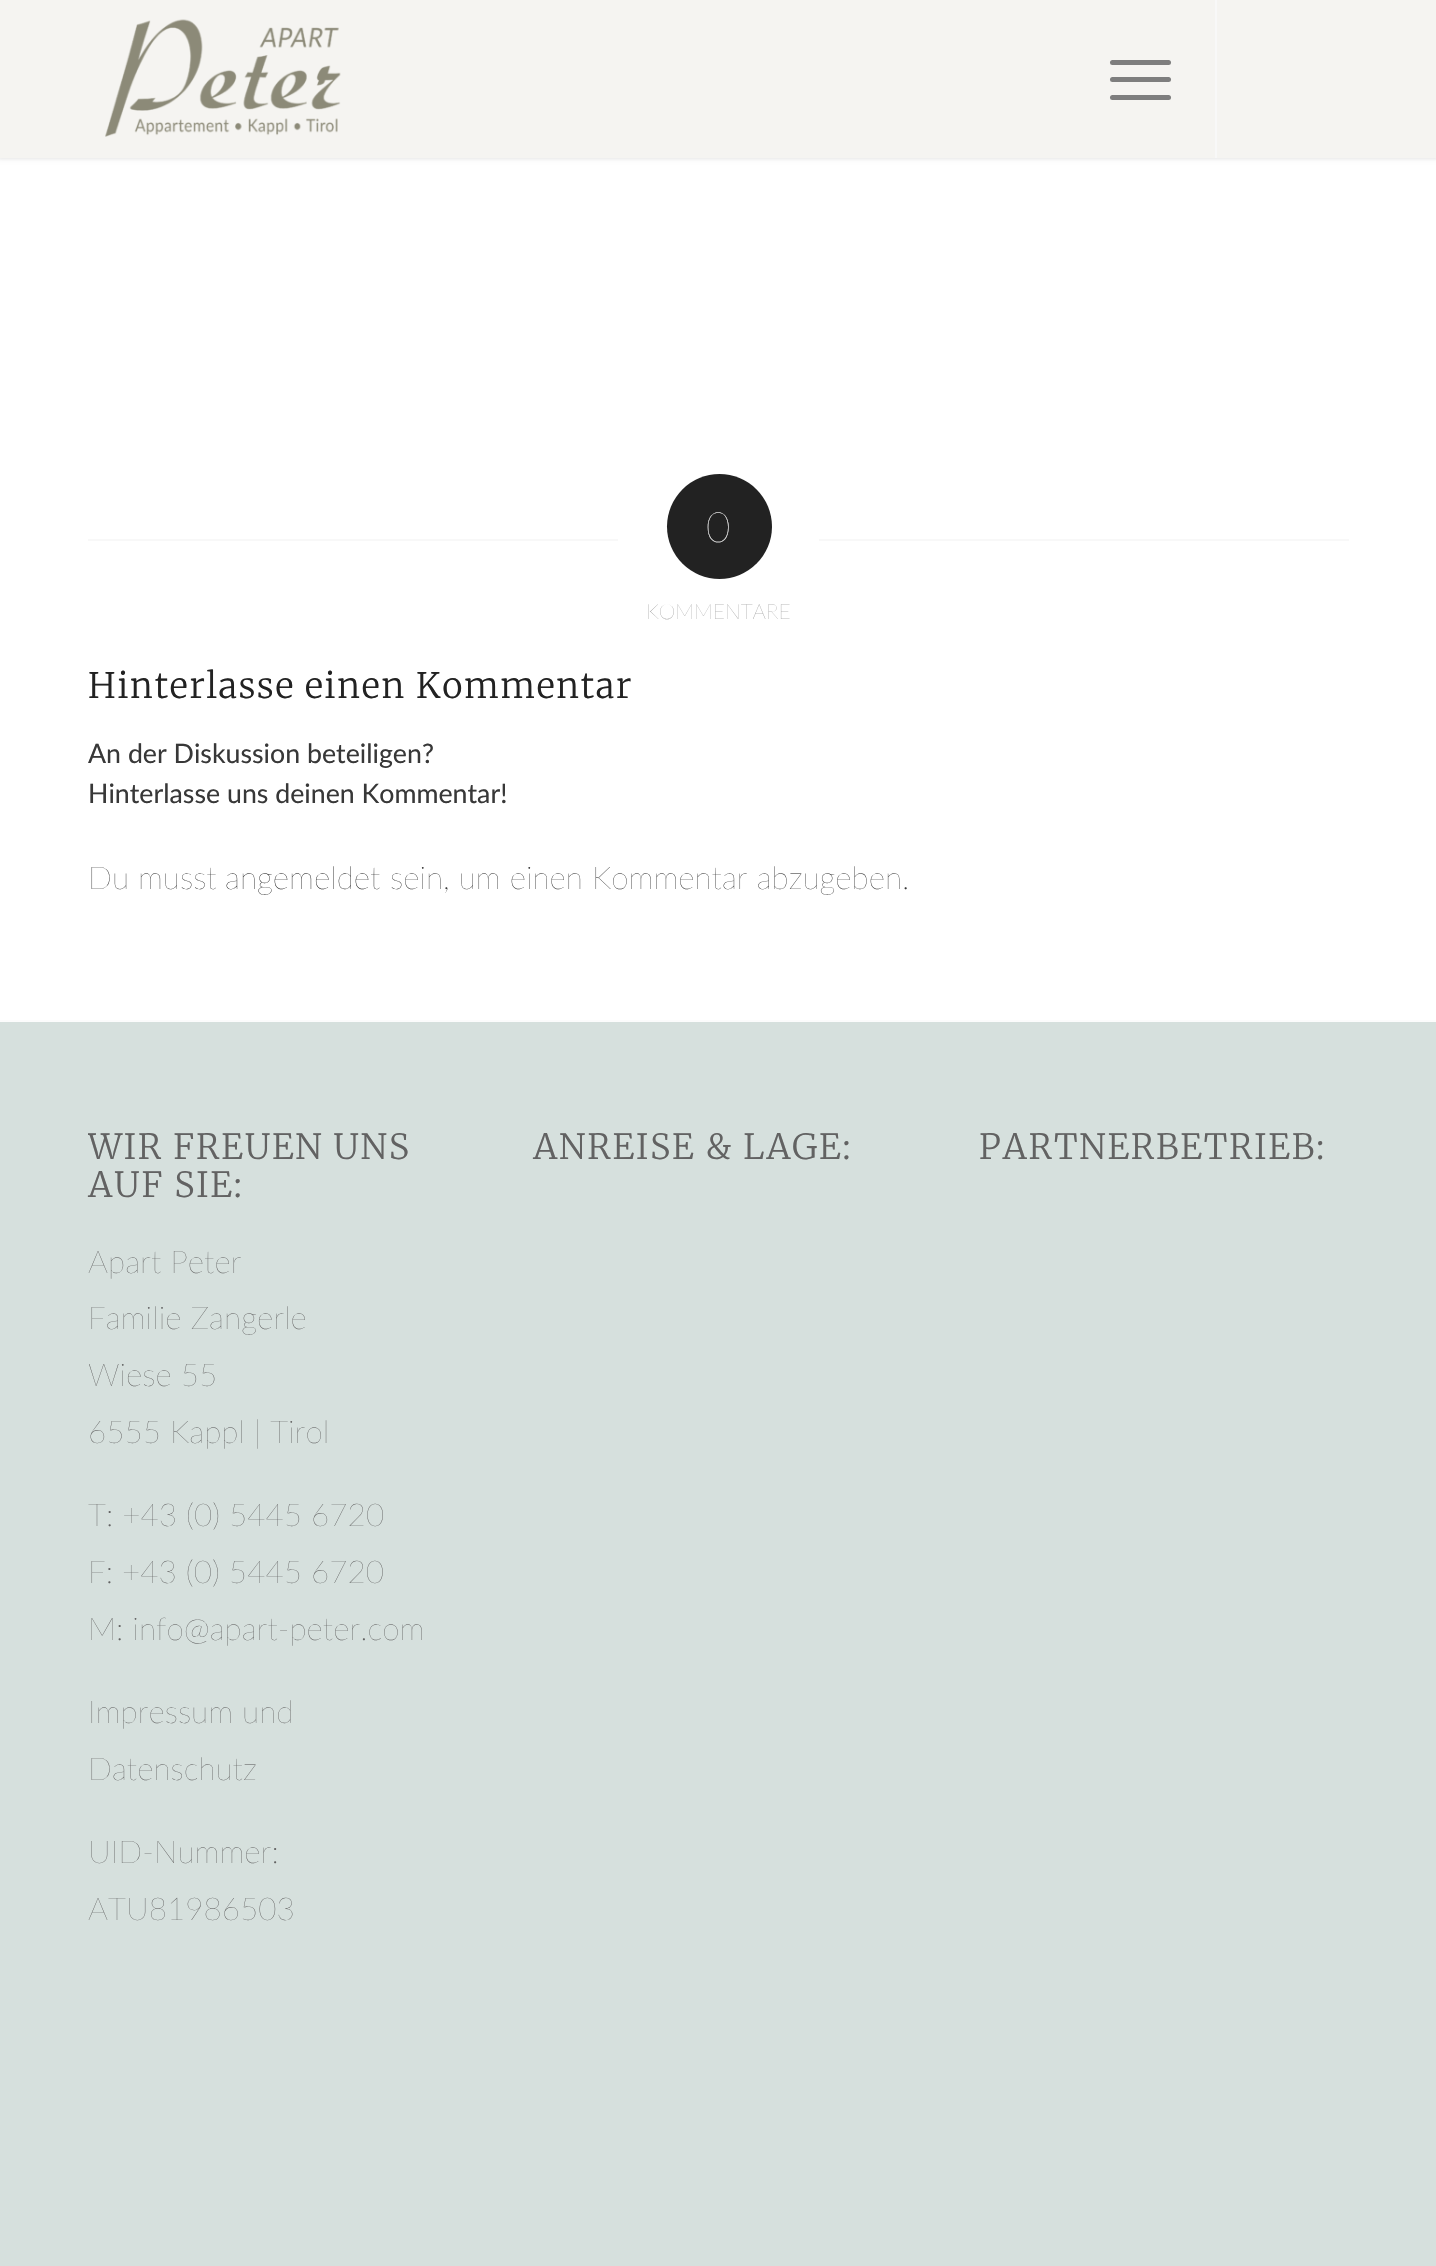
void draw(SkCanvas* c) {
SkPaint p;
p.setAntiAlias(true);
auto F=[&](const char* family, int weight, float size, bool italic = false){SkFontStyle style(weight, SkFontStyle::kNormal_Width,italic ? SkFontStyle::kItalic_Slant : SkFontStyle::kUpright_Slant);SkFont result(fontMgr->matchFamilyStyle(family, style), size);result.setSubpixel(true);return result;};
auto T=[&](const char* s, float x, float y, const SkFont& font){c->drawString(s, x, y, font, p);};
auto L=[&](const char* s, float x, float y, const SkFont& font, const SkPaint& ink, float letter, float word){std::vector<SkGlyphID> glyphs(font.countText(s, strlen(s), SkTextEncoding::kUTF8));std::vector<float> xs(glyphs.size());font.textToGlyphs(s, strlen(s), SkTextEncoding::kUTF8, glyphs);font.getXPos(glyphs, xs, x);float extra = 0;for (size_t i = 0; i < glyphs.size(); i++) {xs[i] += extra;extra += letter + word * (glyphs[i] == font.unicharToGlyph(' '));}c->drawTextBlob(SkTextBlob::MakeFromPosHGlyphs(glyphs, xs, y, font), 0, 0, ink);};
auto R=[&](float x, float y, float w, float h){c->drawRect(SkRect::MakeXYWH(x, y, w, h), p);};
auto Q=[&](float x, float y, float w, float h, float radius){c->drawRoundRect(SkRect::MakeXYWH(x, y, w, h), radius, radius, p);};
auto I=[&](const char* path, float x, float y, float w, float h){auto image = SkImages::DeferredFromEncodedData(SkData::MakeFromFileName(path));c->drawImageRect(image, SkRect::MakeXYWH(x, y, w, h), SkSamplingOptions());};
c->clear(0xffffffff);
p.setColor(0x1a000000);
p.setMaskFilter(SkMaskFilter::MakeBlur(kNormal_SkBlurStyle, 2));
c->drawRect(SkRect::MakeXYWH(-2,-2,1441,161),p);
p.setMaskFilter(nullptr);
p.setColor(0xfff5f4f1);
R(0,0,1436,158);
I("1.png",105,19,236,118);
p.setColor(0xfff8f8f8);
R(1215,0,2,158);
p.setColor(0xff7e7e7e);
Q(1110,77,61,5,2.5);
Q(1110,60,61,5,2.5);
Q(1110,95,61,5,2.5);
p.setColor(0xfff8f8f8);
R(88,539,530,2);
p.setColor(0xff222222);
c->drawCircle(719.5,526.5,52.5,p);
auto f1 = F("Lato",200,42);
p.setColor(0xffffffff);
T("0",706,542,f1);
p.setColor(0xfff8f8f8);
R(819,539,530,2);
auto f2 = F("Lato",200,21);
p.setColor(0xff919191);
T("KOMMENTARE",646,619,f2);
auto f3 = F("Merriweather",300,35);
p.setColor(0xff222222);
L("Hinterlasse einen Kommentar",88,698,f3,p,1.75,0);
auto f4 = F("Lato",400,26.75);
p.setColor(0xff383838);
T("An der Diskussion beteiligen?",88,763,f4);
T("Hinterlasse uns deinen Kommentar!",88,803,f4);
auto f5 = F("Lato",200,31.5);
T("Du musst",88,889,f5);
p.setColor(0xff222222);
T("angemeldet",225,889,f5);
p.setColor(0xff383838);
T("sein, um einen Kommentar abzugeben.",390,889,f5);
p.setColor(0xffd6e0dd);
R(0,1022,1436,1244);
p.setColor(0xfffcfcfc);
R(0,1020,1436,2);
c->save();
c->clipRect(SkRect::MakeXYWH(88,1101,369,863));
auto f6 = F("Merriweather",300,34.6);
p.setColor(0xff626262);
L("WIR FREUEN UNS",88,1159,f6,p,1.75,0);
c->restore();
L("AUF SIE:",88,1197,f6,p,1.75,0);
T("Apart Peter",88,1273,f5);
T("Familie Zangerle",88,1329,f5);
T("Wiese 55",88,1386,f5);
T("6555 Kappl | Tirol",88,1443,f5);
T("T: +43 (0) 5445 6720",88,1526,f5);
T("F: +43 (0) 5445 6720",88,1583,f5);
T("M: info@apart-peter.com",88,1640,f5);
T("Impressum und",88,1723,f5);
T("Datenschutz",88,1780,f5);
T("UID-Nummer:",88,1863,f5);
T("ATU81986503",88,1920,f5);
L("ANREISE & LAGE:",533,1159,f6,p,1.75,0);
L("PARTNERBETRIEB:",979,1159,f6,p,1.75,0);
}
